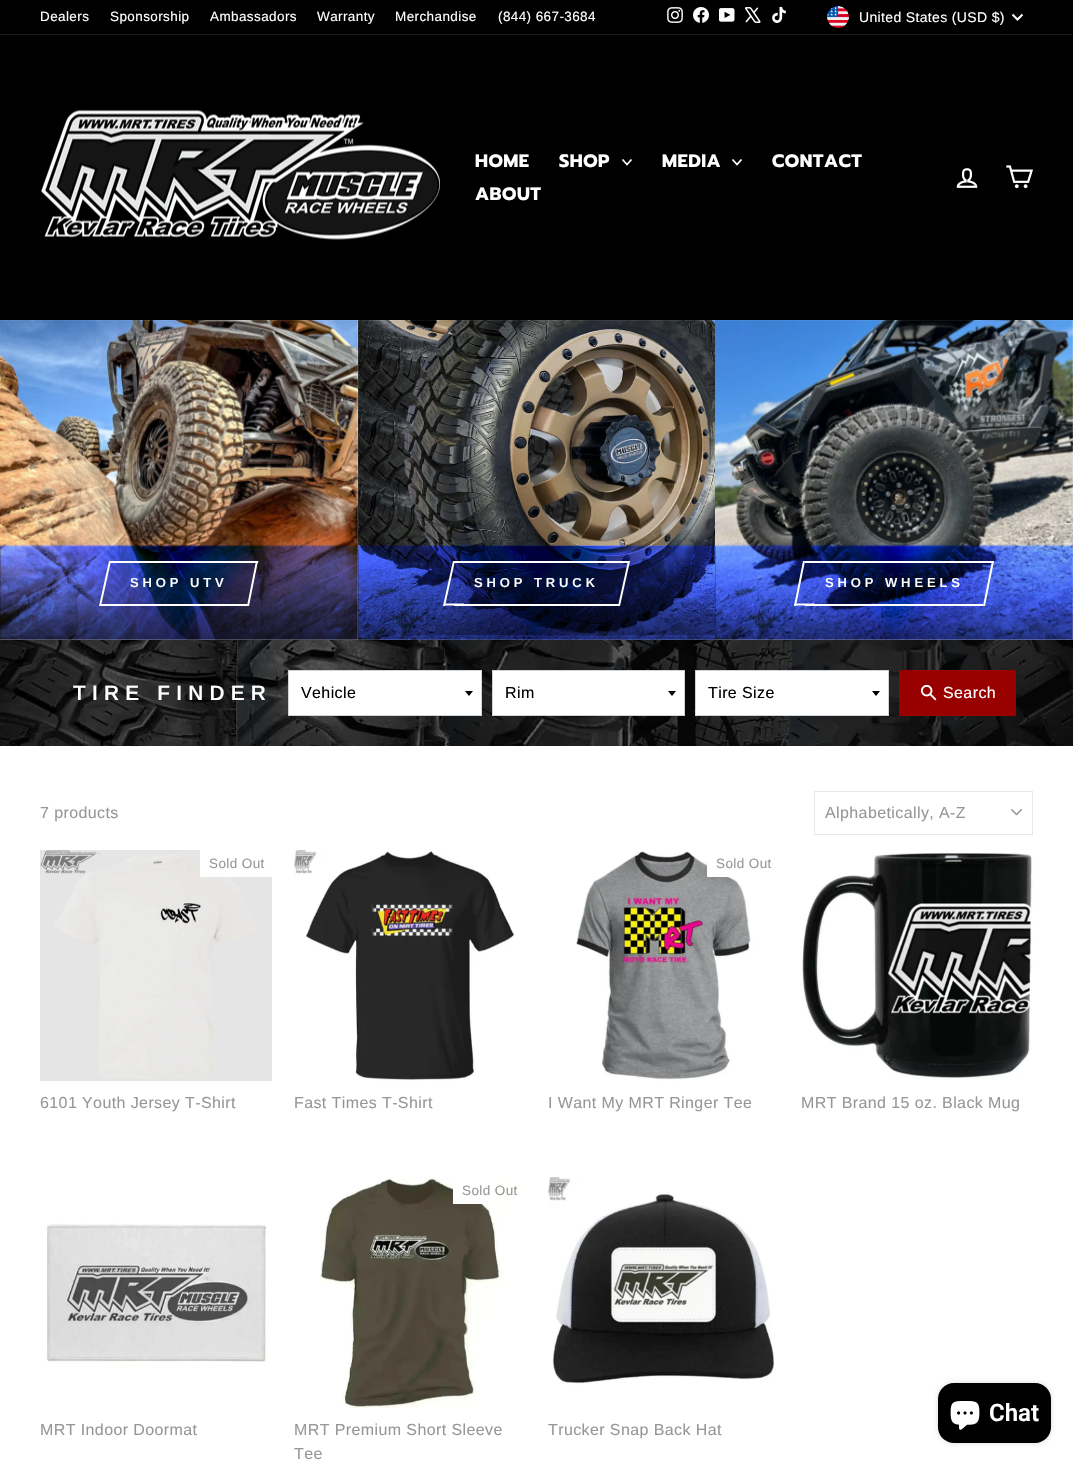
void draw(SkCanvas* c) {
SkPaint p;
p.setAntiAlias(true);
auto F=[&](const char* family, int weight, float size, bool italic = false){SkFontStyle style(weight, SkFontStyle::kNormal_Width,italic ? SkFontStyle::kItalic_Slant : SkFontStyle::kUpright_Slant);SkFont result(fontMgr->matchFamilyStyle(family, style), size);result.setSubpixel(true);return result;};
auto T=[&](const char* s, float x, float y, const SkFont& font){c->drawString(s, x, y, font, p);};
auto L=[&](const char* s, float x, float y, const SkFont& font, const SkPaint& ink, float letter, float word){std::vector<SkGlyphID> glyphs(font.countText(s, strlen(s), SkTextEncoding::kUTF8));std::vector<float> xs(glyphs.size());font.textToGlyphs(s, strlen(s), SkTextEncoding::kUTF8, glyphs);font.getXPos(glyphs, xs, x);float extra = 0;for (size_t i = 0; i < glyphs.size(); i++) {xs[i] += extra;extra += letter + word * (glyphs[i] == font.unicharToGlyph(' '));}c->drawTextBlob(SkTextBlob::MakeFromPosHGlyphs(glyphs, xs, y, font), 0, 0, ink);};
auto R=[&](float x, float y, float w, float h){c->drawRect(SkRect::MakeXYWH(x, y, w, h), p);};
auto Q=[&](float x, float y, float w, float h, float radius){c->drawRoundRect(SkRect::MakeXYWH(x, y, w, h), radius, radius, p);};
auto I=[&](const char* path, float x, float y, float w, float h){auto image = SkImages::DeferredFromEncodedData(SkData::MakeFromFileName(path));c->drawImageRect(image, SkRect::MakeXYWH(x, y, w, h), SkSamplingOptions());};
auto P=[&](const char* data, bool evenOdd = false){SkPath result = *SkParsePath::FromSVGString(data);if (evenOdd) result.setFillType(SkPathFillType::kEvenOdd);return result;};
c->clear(0xffffffff);
p.setColor(0xff000000);
R(0,0,1073,34);
auto f1 = F("Arimo",400,13.5);
p.setColor(0xffffffff);
L("Dealers",40,21,f1,p,.4,0);
L("Sponsorship",110,21,f1,p,.4,0);
L("Ambassadors",210,21,f1,p,.4,0);
L("Warranty",317,21,f1,p,.4,0);
L("Merchandise",395,21,f1,p,.4,0);
L("(844) 667-3684",498,21,f1,p,.4,0);
I("1.png",667,7,16,16);
I("2.png",693,7,16,16);
I("3.png",719,8,16,14);
I("4.png",745,7,16,16);
I("5.png",772,7,14,16);
I("6.png",827,6,22,22);
auto f2 = F("Arimo",400,14);
L("United States (USD $)",859,22,f2,p,.35,0);
p.setStroke(true);
p.setStrokeWidth(2);
c->drawPath(P("M1012.5 14.5l5 5l5-5"),p);
p.setStroke(false);
p.setColor(0xff000000);
R(0,35,1073,285);
p.setColor(0xff1a1a1a);
R(0,34,1073,1);
I("7.png",41,110,399,130);
auto f3 = F("Prompt",700,18);
p.setColor(0xffffffff);
L("HOME",475,167,f3,p,.5,0);
L("SHOP",559,167,f3,p,.5,0);
p.setStroke(true);
p.setStrokeWidth(1.8);
c->drawPath(P("M622.5 159.5l4.5 5l4.5-5"),p);
p.setStroke(false);
L("MEDIA",662,167,f3,p,.5,0);
p.setStroke(true);
c->drawPath(P("M732.5 159.5l4.5 5l4.5-5"),p);
p.setStroke(false);
L("CONTACT",772,167,f3,p,.5,0);
L("ABOUT",475,200,f3,p,.5,0);
I("8.png",956,168,22,20);
I("9.png",1006,165,27,24);
I("10.png",0,320,358,320);
R(110,561,129,2);
R(100,604,148,2);
c->drawPath(P("M109 561h2l-10 45h-2z"),p);
auto f4 = F("Arimo",600,13);
L("SHOP UTV",130,587,f4,p,3.9,0);
c->drawPath(P("M238.5 561h20l-.5 2h-20z"),p);
c->drawPath(P("M256 561h2l-9 45h-2z"),p);
I("11.png",358,320,357,320);
R(454,561,156,2);
R(454,604,165,2);
c->drawPath(P("M444 603.5h20l-.5 2h-20z"),p);
c->drawPath(P("M453 561h2l-10 45h-2z"),p);
L("SHOP TRUCK",474,587,f4,p,3.9,0);
c->drawPath(P("M609.5 561h20l-.5 2h-20z"),p);
c->drawPath(P("M628 561h2l-10 45h-2z"),p);
I("12.png",715,320,358,320);
R(805,561,169,2);
R(805,604,178,2);
c->drawPath(P("M794.5 603.5h20l-.5 2h-20z"),p);
c->drawPath(P("M803 561h2l-9 45h-2z"),p);
L("SHOP WHEELS",825,587,f4,p,3.9,0);
c->drawPath(P("M974 561h20l-.5 2h-20z"),p);
c->drawPath(P("M992 561h2l-9 45h-2z"),p);
I("13.png",0,640,1073,106);
auto f5 = F("Arimo",600,20.75);
L("TIRE FINDER",73,700,f5,p,6.25,0);
c->drawRect(SkRect::MakeXYWH(288.5,670.5,193,45),p);
p.setStroke(true);
p.setStrokeWidth(1);
p.setColor(0xffced4da);
c->drawRect(SkRect::MakeXYWH(288.5,670.5,193,45),p);
auto f6 = F("Arimo",400,16);
p.setStroke(false);
p.setColor(0xff000000);
L("Vehicle",301,698,f6,p,.4,0);
c->drawPath(P("M465 691h8l-4 5z"),p);
p.setColor(0xffffffff);
c->drawRect(SkRect::MakeXYWH(492.5,670.5,192,45),p);
p.setStroke(true);
p.setColor(0xffced4da);
c->drawRect(SkRect::MakeXYWH(492.5,670.5,192,45),p);
p.setStroke(false);
p.setColor(0xff000000);
L("Rim",505,698,f6,p,.4,0);
c->drawPath(P("M668 691h8l-4 5z"),p);
p.setColor(0xffffffff);
c->drawRect(SkRect::MakeXYWH(695.5,670.5,193,45),p);
p.setStroke(true);
p.setColor(0xffced4da);
c->drawRect(SkRect::MakeXYWH(695.5,670.5,193,45),p);
p.setStroke(false);
p.setColor(0xff000000);
L("Tire Size",708,698,f6,p,.4,0);
c->drawPath(P("M872 691h8l-4 5z"),p);
p.setColor(0xff990000);
R(899,670,117,46);
I("14.png",920,684,17,17);
p.setColor(0xffffffff);
L("Search",943,698,f6,p,.4,0);
p.setColor(0xff979797);
L("7 products",40,818,f6,p,.4,0);
I("15.png",1011,809,11,7);
p.setStroke(true);
p.setColor(0xffe8e8e1);
c->drawRect(SkRect::MakeXYWH(814.5,791.5,218,43),p);
p.setStroke(false);
p.setColor(0xff979797);
L("Alphabetically, A-Z",825,818,f6,p,.4,0);
p.setColor(0xffe5e5e5);
R(40,850,232,231);
I("16.png",40,850,216,229);
p.setColor(0xffffffff);
R(200,850,72,27);
p.setColor(0xff979797);
L("Sold Out",209,868,f1,p,.4,0);
L("6101 Youth Jersey T-Shirt",40,1108,f6,p,.4,0);
I("17.png",294,850,232,231);
L("Fast Times T-Shirt",294,1108,f6,p,.4,0);
I("18.png",548,850,231,231);
p.setColor(0xffffffff);
R(707,864,23,13);
p.setColor(0xff979797);
L("Sold Out",716,868,f1,p,.4,0);
L("I Want My MRT Ringer Tee",548,1108,f6,p,.4,0);
I("19.png",801,850,232,231);
p.setColor(0xff161a19);
T("Q",883,1062,f1);
p.setColor(0xff979797);
L("MRT Brand 15 oz. Black Mug",801,1108,f6,p,.4,0);
I("20.png",40,1177,232,231);
L("MRT Indoor Doormat",40,1435,f6,p,.4,0);
I("21.png",294,1177,232,231);
p.setColor(0xffffffff);
R(453,1181,37,23);
p.setColor(0xff979797);
L("Sold Out",462,1195,f1,p,.4,0);
L("MRT Premium Short Sleeve",294,1435,f6,p,.4,0);
L("Tee",294,1459,f6,p,.4,0);
I("22.png",548,1177,231,231);
L("Trucker Snap Back Hat",548,1435,f6,p,.4,0);
p.setColor(0x26000000);
p.setMaskFilter(SkMaskFilter::MakeBlur(kNormal_SkBlurStyle, 2.5));
c->drawRoundRect(SkRect::MakeXYWH(938,1383,113,60),16,16,p);
p.setMaskFilter(nullptr);
p.setColor(0xff000000);
Q(938,1383,113,60,16);
I("23.png",950,1401,30,29);
auto f7 = F("Roboto",600,24);
p.setColor(0xffffffff);
T("Chat",989,1421,f7);
}
